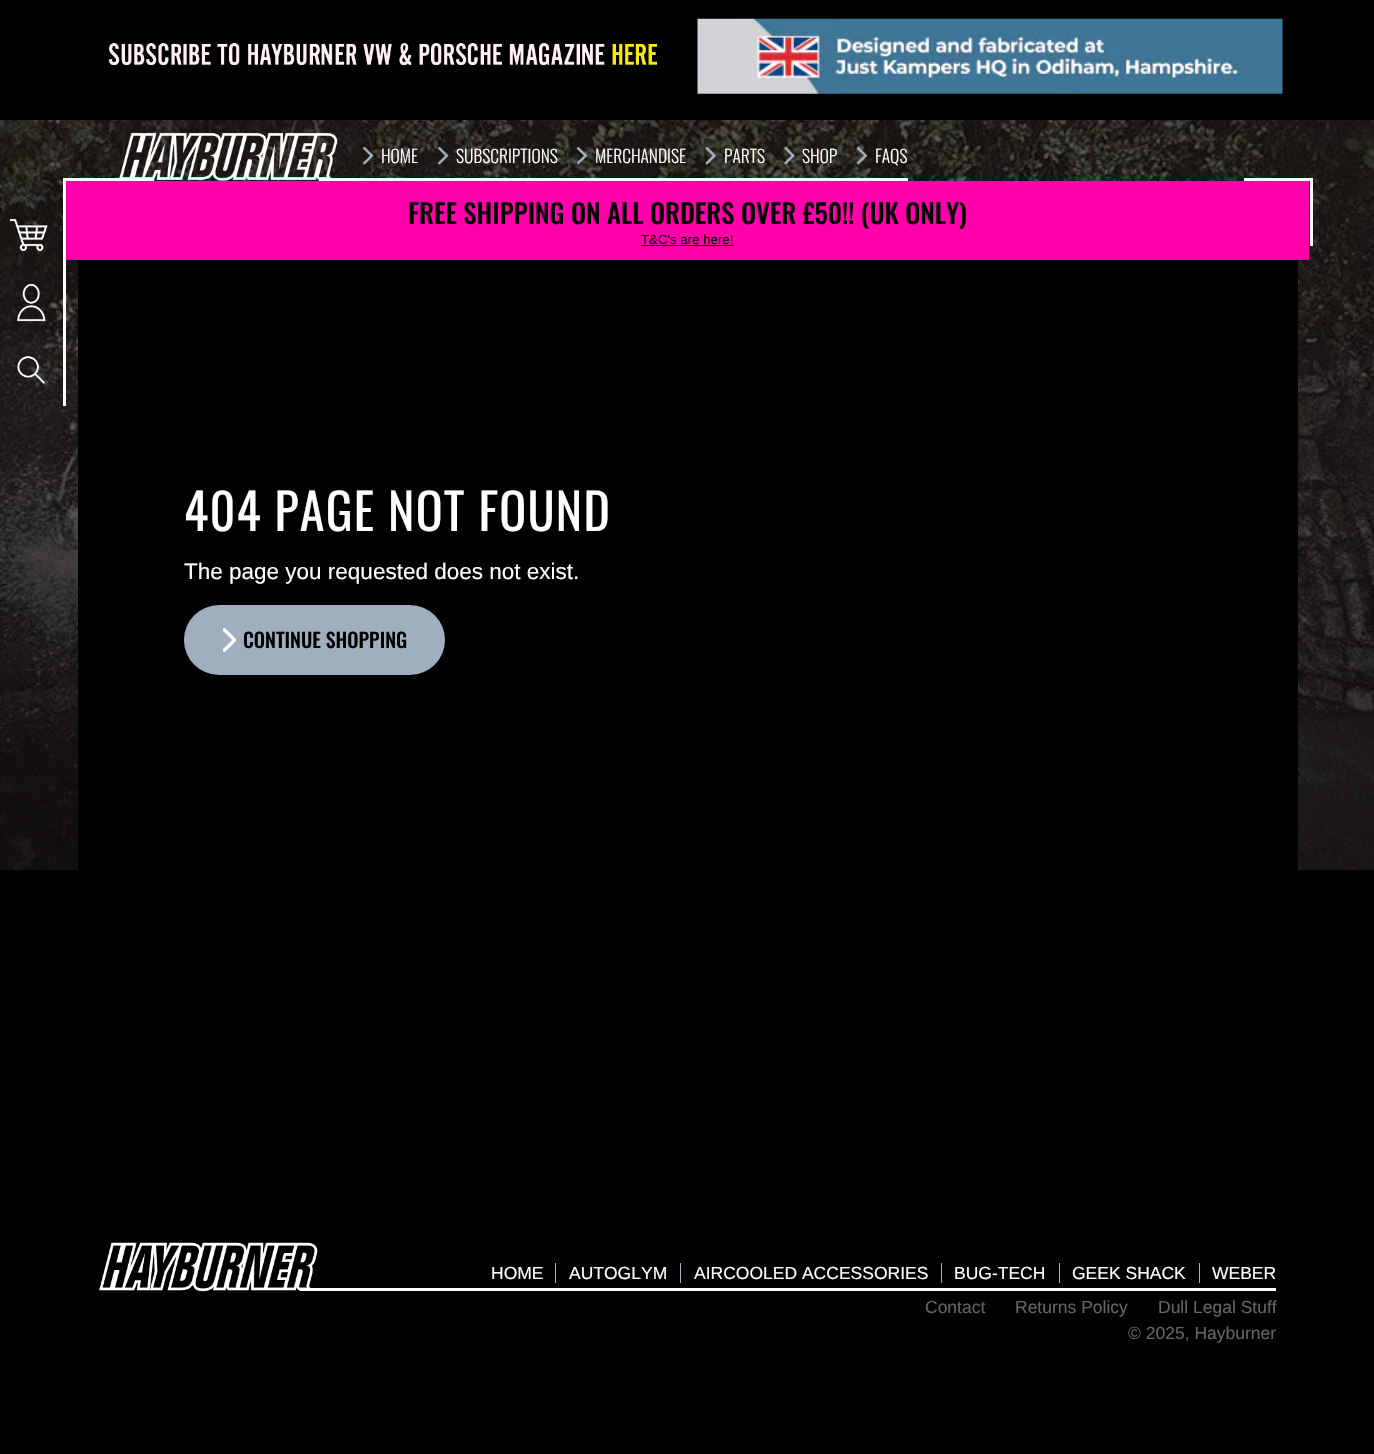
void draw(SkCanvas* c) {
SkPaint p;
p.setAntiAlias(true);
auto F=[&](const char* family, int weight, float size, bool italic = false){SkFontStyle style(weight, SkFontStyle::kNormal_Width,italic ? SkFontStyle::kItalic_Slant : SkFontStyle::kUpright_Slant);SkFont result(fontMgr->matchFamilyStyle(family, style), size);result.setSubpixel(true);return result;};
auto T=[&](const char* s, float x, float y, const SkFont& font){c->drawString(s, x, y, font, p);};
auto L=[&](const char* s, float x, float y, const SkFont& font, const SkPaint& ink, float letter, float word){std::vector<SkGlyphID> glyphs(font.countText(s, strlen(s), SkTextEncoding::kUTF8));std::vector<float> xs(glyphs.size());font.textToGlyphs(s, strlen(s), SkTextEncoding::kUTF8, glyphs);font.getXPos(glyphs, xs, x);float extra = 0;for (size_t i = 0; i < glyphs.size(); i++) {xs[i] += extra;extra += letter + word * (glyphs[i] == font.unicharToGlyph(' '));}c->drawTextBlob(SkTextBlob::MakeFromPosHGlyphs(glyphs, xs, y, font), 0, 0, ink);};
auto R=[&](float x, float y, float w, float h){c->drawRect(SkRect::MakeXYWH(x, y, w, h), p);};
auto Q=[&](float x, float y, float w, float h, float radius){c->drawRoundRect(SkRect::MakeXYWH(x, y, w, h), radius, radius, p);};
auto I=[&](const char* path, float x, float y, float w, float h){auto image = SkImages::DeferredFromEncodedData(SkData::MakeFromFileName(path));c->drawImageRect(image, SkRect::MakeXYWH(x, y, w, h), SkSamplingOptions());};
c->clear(0xff000000);
I("1.png",108,43,549,22);
I("2.png",697,18,586,76);
I("13.png",0,120,1374,750);
p.setColor(0xffffffff);
R(319,178,589,3);
I("3.png",119,132,219,49);
R(63,178,91,3);
I("4.png",362,146,12,19);
auto f1 = F("Oswald",300,17.5);
T("HOME",381,163,f1);
I("5.png",437,146,12,19);
T("SUBSCRIPTIONS",456,163,f1);
I("6.png",576,146,12,19);
T("MERCHANDISE",595,163,f1);
I("7.png",705,146,12,19);
T("PARTS",724,163,f1);
I("8.png",783,146,12,19);
T("SHOP",802,163,f1);
I("9.png",856,146,12,19);
T("FAQS",875,163,f1);
{
const SkColor colors[] = {0x00000000,0x66000000};
const float stops[] = {0,1};
const SkPoint ends[] = {{688,307}, {688,870}};
p.setShader(SkGradientShader::MakeLinear(ends, colors, stops, 2, SkTileMode::kClamp));
p.setAlpha(255);
}
R(0,345,1374,525);
p.setShader(nullptr);
p.setColor(0xffffffff);
R(63,179,3,227);
I("10.png",10,218,38,34);
I("11.png",17,283,29,39);
I("12.png",17,356,28,28);
p.setColor(0xffff00ab);
R(66,181,1243,79);
auto f2 = F("Oswald",500,26.7);
p.setColor(0xff000000);
T("FREE SHIPPING ON ALL ORDERS OVER £50!! (UK ONLY)",408,224,f2);
auto f3 = F("Liberation Sans",400,13.25);
T("T&C's are here!",641,244,f3);
R(641,245,93,1);
R(78,260,1220,610);
p.setColor(0xffffffff);
R(1244,178,69,3);
R(1310,178,3,68);
auto f4 = F("Oswald",400,50);
L("404 PAGE NOT FOUND",184,531,f4,p,1.25,0);
auto f5 = F("Liberation Sans",400,22.5);
T("The page you requested does not exist.",184,579,f5);
p.setColor(0xffa0afbf);
Q(184,605,261,70,35);
I("14.png",223,628,13,24);
auto f6 = F("Oswald",500,20);
p.setColor(0xff000000);
T("CONTINUE SHOPPING",243,648,f6);
I("15.png",99,1242,219,50);
p.setColor(0xffffffff);
R(300,1288,18,3);
R(318,1288,958,3);
p.setColor(0xffa0afbf);
R(555,1263,1,20);
auto f7 = F("Liberation Sans",400,17.5);
p.setColor(0xffffffff);
T("HOME",491,1279,f7);
p.setColor(0xffa0afbf);
R(680,1263,1,20);
p.setColor(0xffffffff);
T("AUTOGLYM",569,1279,f7);
p.setColor(0xffa0afbf);
R(941,1263,1,20);
p.setColor(0xffffffff);
T("AIRCOOLED ACCESSORIES",694,1279,f7);
p.setColor(0xffa0afbf);
R(1059,1263,1,20);
p.setColor(0xffffffff);
T("BUG-TECH",954,1279,f7);
p.setColor(0xffa0afbf);
R(1199,1263,1,20);
p.setColor(0xffffffff);
T("GEEK SHACK",1072,1279,f7);
T("WEBER",1212,1279,f7);
p.setColor(0xff666666);
T("Contact",925,1313,f7);
T("Returns Policy",1015,1313,f7);
T("Dull Legal Stuff",1158,1313,f7);
T("© 2025, Hayburner",1128,1339,f7);
}
